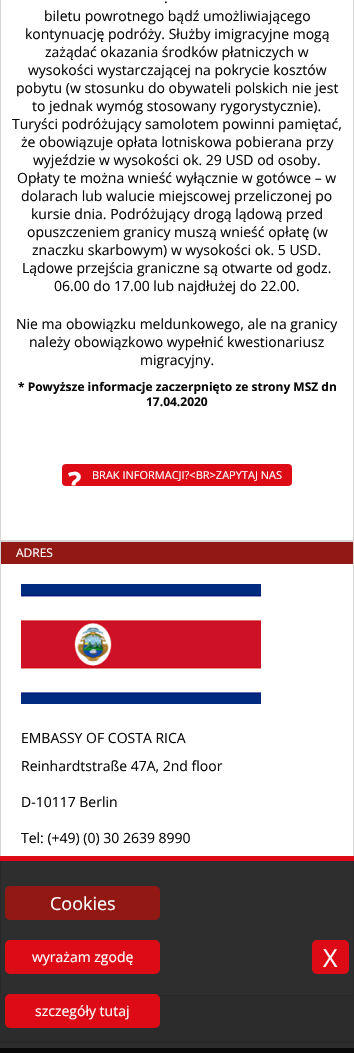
void draw(SkCanvas* c) {
SkPaint p;
p.setAntiAlias(true);
auto F=[&](const char* family, int weight, float size, bool italic = false){SkFontStyle style(weight, SkFontStyle::kNormal_Width,italic ? SkFontStyle::kItalic_Slant : SkFontStyle::kUpright_Slant);SkFont result(fontMgr->matchFamilyStyle(family, style), size);result.setSubpixel(true);return result;};
auto T=[&](const char* s, float x, float y, const SkFont& font){c->drawString(s, x, y, font, p);};
auto R=[&](float x, float y, float w, float h){c->drawRect(SkRect::MakeXYWH(x, y, w, h), p);};
auto Q=[&](float x, float y, float w, float h, float radius){c->drawRoundRect(SkRect::MakeXYWH(x, y, w, h), radius, radius, p);};
auto I=[&](const char* path, float x, float y, float w, float h){auto image = SkImages::DeferredFromEncodedData(SkData::MakeFromFileName(path));c->drawImageRect(image, SkRect::MakeXYWH(x, y, w, h), SkSamplingOptions());};
c->clear(0xffededed);
p.setColor(0xffffffff);
c->drawRect(SkRect::MakeXYWH(.5,-.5,353,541),p);
p.setStroke(true);
p.setStrokeWidth(1);
p.setColor(0xffd5d5d5);
c->drawRect(SkRect::MakeXYWH(.5,-.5,353,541),p);
auto f1 = F("Open Sans",400,14);
p.setStroke(false);
p.setColor(0xff090909);
T(".",164,3,f1);
T("biletu powrotnego bądź umożliwiającego",44,21,f1);
T("kontynuację podróży. Służby imigracyjne mogą",25,39,f1);
T("zażądać okazania środków płatniczych w",45,57,f1);
T("wysokości wystarczającej na pokrycie kosztów",28,75,f1);
T("pobytu (w stosunku do obywateli polskich nie jest",16,93,f1);
T("to jednak wymóg stosowany rygorystycznie).",32,111,f1);
T("Turyści podróżujący samolotem powinni pamiętać,",12,129,f1);
T("że obowiązuje opłata lotniskowa pobierana przy",21,147,f1);
T("wyjeździe w wysokości ok. 29 USD od osoby.",33,165,f1);
T("Opłaty te można wnieść wyłącznie w gotówce – w",17,183,f1);
T("dolarach lub walucie miejscowej przeliczonej po",21,201,f1);
T("kursie dnia. Podróżujący drogą lądową przed",31,219,f1);
T("opuszczeniem granicy muszą wnieść opłatę (w",27,237,f1);
T("znaczku skarbowym) w wysokości ok. 5 USD.",32,255,f1);
T("Lądowe przejścia graniczne są otwarte od godz.",22,273,f1);
T("06.00 do 17.00 lub najdłużej do 22.00.",54,291,f1);
T("Nie ma obowiązku meldunkowego, ale na granicy",16,329,f1);
T("należy obowiązkowo wypełnić kwestionariusz",29,347,f1);
T("migracyjny.",140,365,f1);
auto f2 = F("Open Sans",700,12);
T("* Powyższe informacje zaczerpnięto ze strony MSZ dn",18,391,f2);
T("17.04.2020",146,406,f2);
p.setColor(0xffdd0b15);
Q(62,464,230,22,4);
auto f3 = F("Open Sans",700,28);
p.setColor(0xffffffff);
T("?",68,492,f3);
auto f4 = F("Open Sans",400,11);
T("BRAK INFORMACJI?<BR>ZAPYTAJ NAS",92,479,f4);
R(1,564,352,431);
p.setStroke(true);
p.setColor(0xffd5d5d5);
c->drawRect(SkRect::MakeXYWH(.5,541.5,353,454),p);
p.setStroke(false);
p.setColor(0xff921813);
R(1,542,352,22);
auto f5 = F("Open Sans",400,12);
p.setColor(0xffffffff);
T("ADRES",16,557,f5);
I("1.png",21,584,240,120);
p.setColor(0xff090909);
T("EMBASSY OF COSTA RICA",21,743,f1);
T("Reinhardtstraße 47A, 2nd floor",21,771,f1);
T("D-10117 Berlin",21,807,f1);
T("Tel: (+49) (0) 30 2639 8990",21,843,f1);
p.setColor(0xffd5d5d5);
R(0,1041,354,2);
p.setColor(0xd9090909);
R(0,861,354,187);
p.setColor(0xffdd0b15);
R(0,856,354,5);
p.setColor(0xff921813);
Q(5,886,155,34,5);
auto f6 = F("Open Sans",400,18);
p.setColor(0xffffffff);
T("Cookies",50,910,f6);
p.setColor(0xffdd0b15);
Q(5,940,155,34,5);
p.setColor(0xffffffff);
T("wyrażam zgodę",32,962,f1);
p.setColor(0xffdd0b15);
Q(312,940,37,34,5);
auto f7 = F("Open Sans",400,25);
p.setColor(0xffffffff);
T("X",323,967,f7);
p.setColor(0xffdd0b15);
Q(5,994,155,34,5);
p.setColor(0xffffffff);
T("szczegóły tutaj",35,1016,f1);
p.setColor(0xff090909);
R(0,1048,354,5);
}
